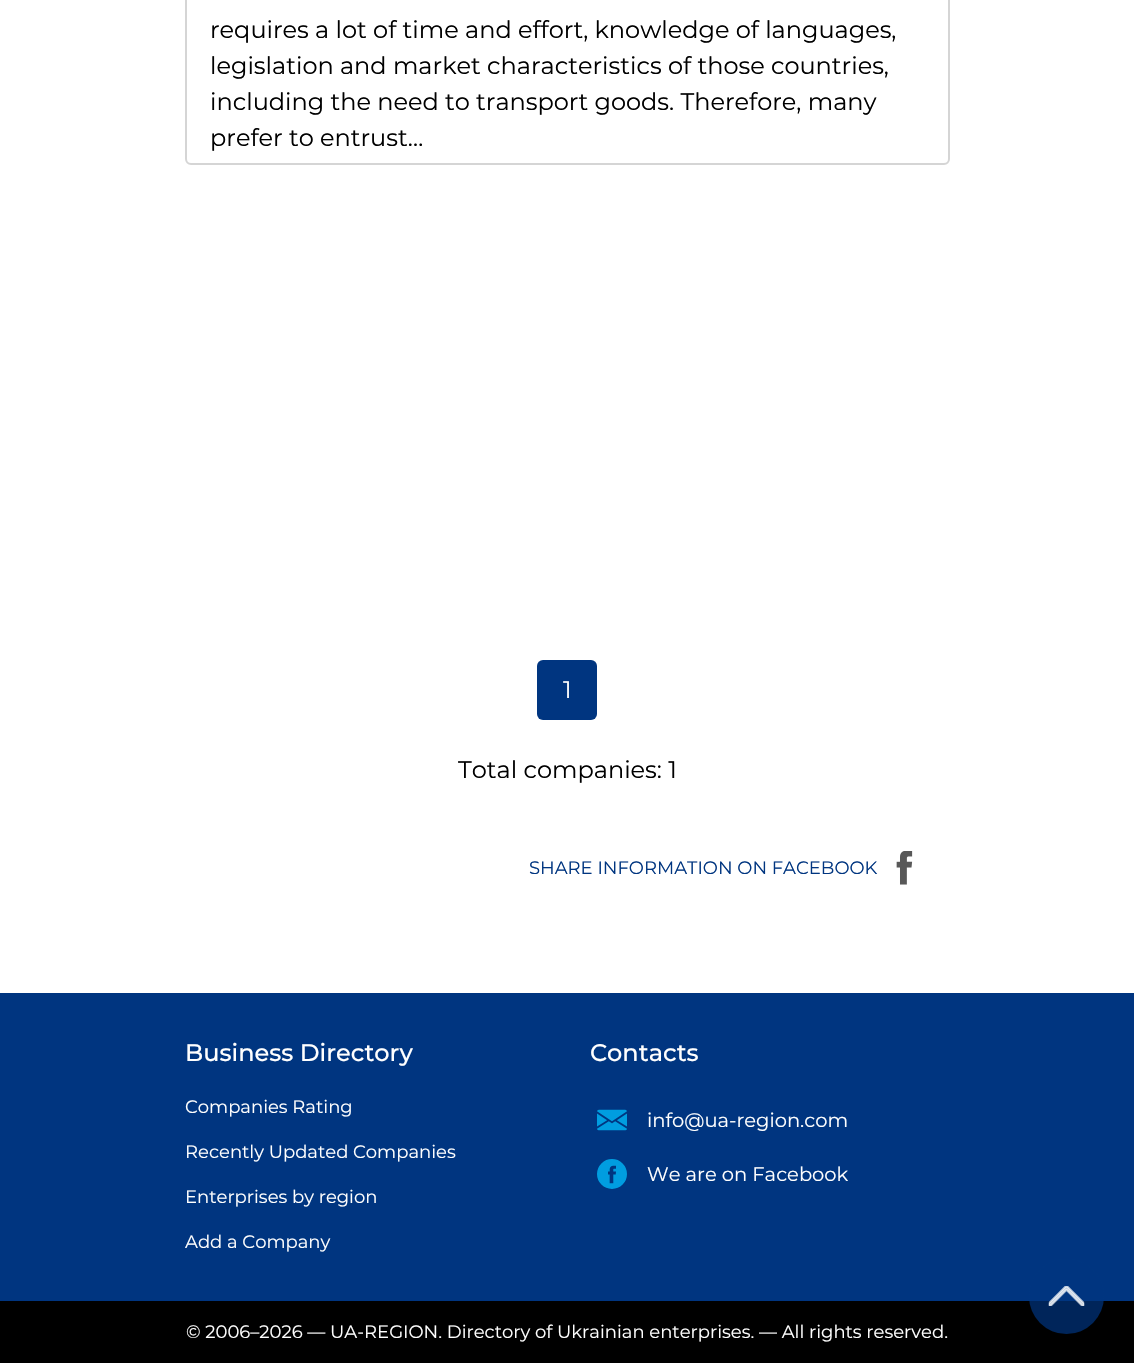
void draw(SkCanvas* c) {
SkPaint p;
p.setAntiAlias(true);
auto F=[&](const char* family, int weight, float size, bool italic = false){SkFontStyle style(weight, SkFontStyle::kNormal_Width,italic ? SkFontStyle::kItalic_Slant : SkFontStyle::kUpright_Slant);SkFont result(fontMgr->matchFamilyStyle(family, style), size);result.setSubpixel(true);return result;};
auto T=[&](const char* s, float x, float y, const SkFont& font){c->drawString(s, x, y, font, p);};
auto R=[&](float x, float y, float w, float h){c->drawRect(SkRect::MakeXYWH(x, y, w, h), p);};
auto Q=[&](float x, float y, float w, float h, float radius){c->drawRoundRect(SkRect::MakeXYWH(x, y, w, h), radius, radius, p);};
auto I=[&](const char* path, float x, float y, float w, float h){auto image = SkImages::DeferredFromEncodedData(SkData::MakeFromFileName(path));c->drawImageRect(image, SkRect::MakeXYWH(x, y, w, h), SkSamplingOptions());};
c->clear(0xffffffff);
p.setStroke(true);
p.setStrokeWidth(2);
p.setColor(0xffd5d5d5);
c->drawRoundRect(SkRect::MakeXYWH(186,-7,763,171),5,5,p);
auto f1 = F("Montserrat",400,24);
p.setStroke(false);
p.setColor(0xff000000);
T("requires a lot of time and effort, knowledge of languages,",210,38,f1);
T("legislation and market characteristics of those countries,",210,74,f1);
T("including the need to transport goods. Therefore, many",210,110,f1);
T("prefer to entrust…",210,146,f1);
p.setColor(0xff003580);
Q(537,660,60,60,6);
p.setColor(0xffffffff);
T("1",563,698,f1);
p.setColor(0xff000000);
T("Total companies: 1",458,778,f1);
auto f2 = F("Montserrat",400,18);
p.setColor(0xff003580);
T("SHARE INFORMATION ON FACEBOOK",529,874,f2);
I("1.png",896,851,17,34);
R(0,993,1134,308);
auto f3 = F("Montserrat",500,24);
p.setColor(0xffffffff);
T("Business Directory",185,1061,f3);
T("Companies Rating",185,1113,f2);
T("Recently Updated Companies",185,1158,f2);
T("Enterprises by region",185,1203,f2);
T("Add a Company",185,1248,f2);
T("Contacts",590,1061,f3);
I("2.png",597,1109,30,22);
auto f4 = F("Montserrat",400,19.5);
T("info@ua-region.com",647,1127,f4);
I("3.png",597,1159,30,30);
T("We are on Facebook",647,1181,f4);
p.setColor(0xff000000);
R(0,1301,1134,62);
p.setColor(0xffffffff);
T("© 2006–2026 — UA-REGION. Directory of Ukrainian enterprises. — All rights reserved.",186,1338,f2);
p.setColor(0xb3003580);
c->drawCircle(1066.5,1296.5,37.5,p);
I("4.png",1048,1286,37,20);
}
